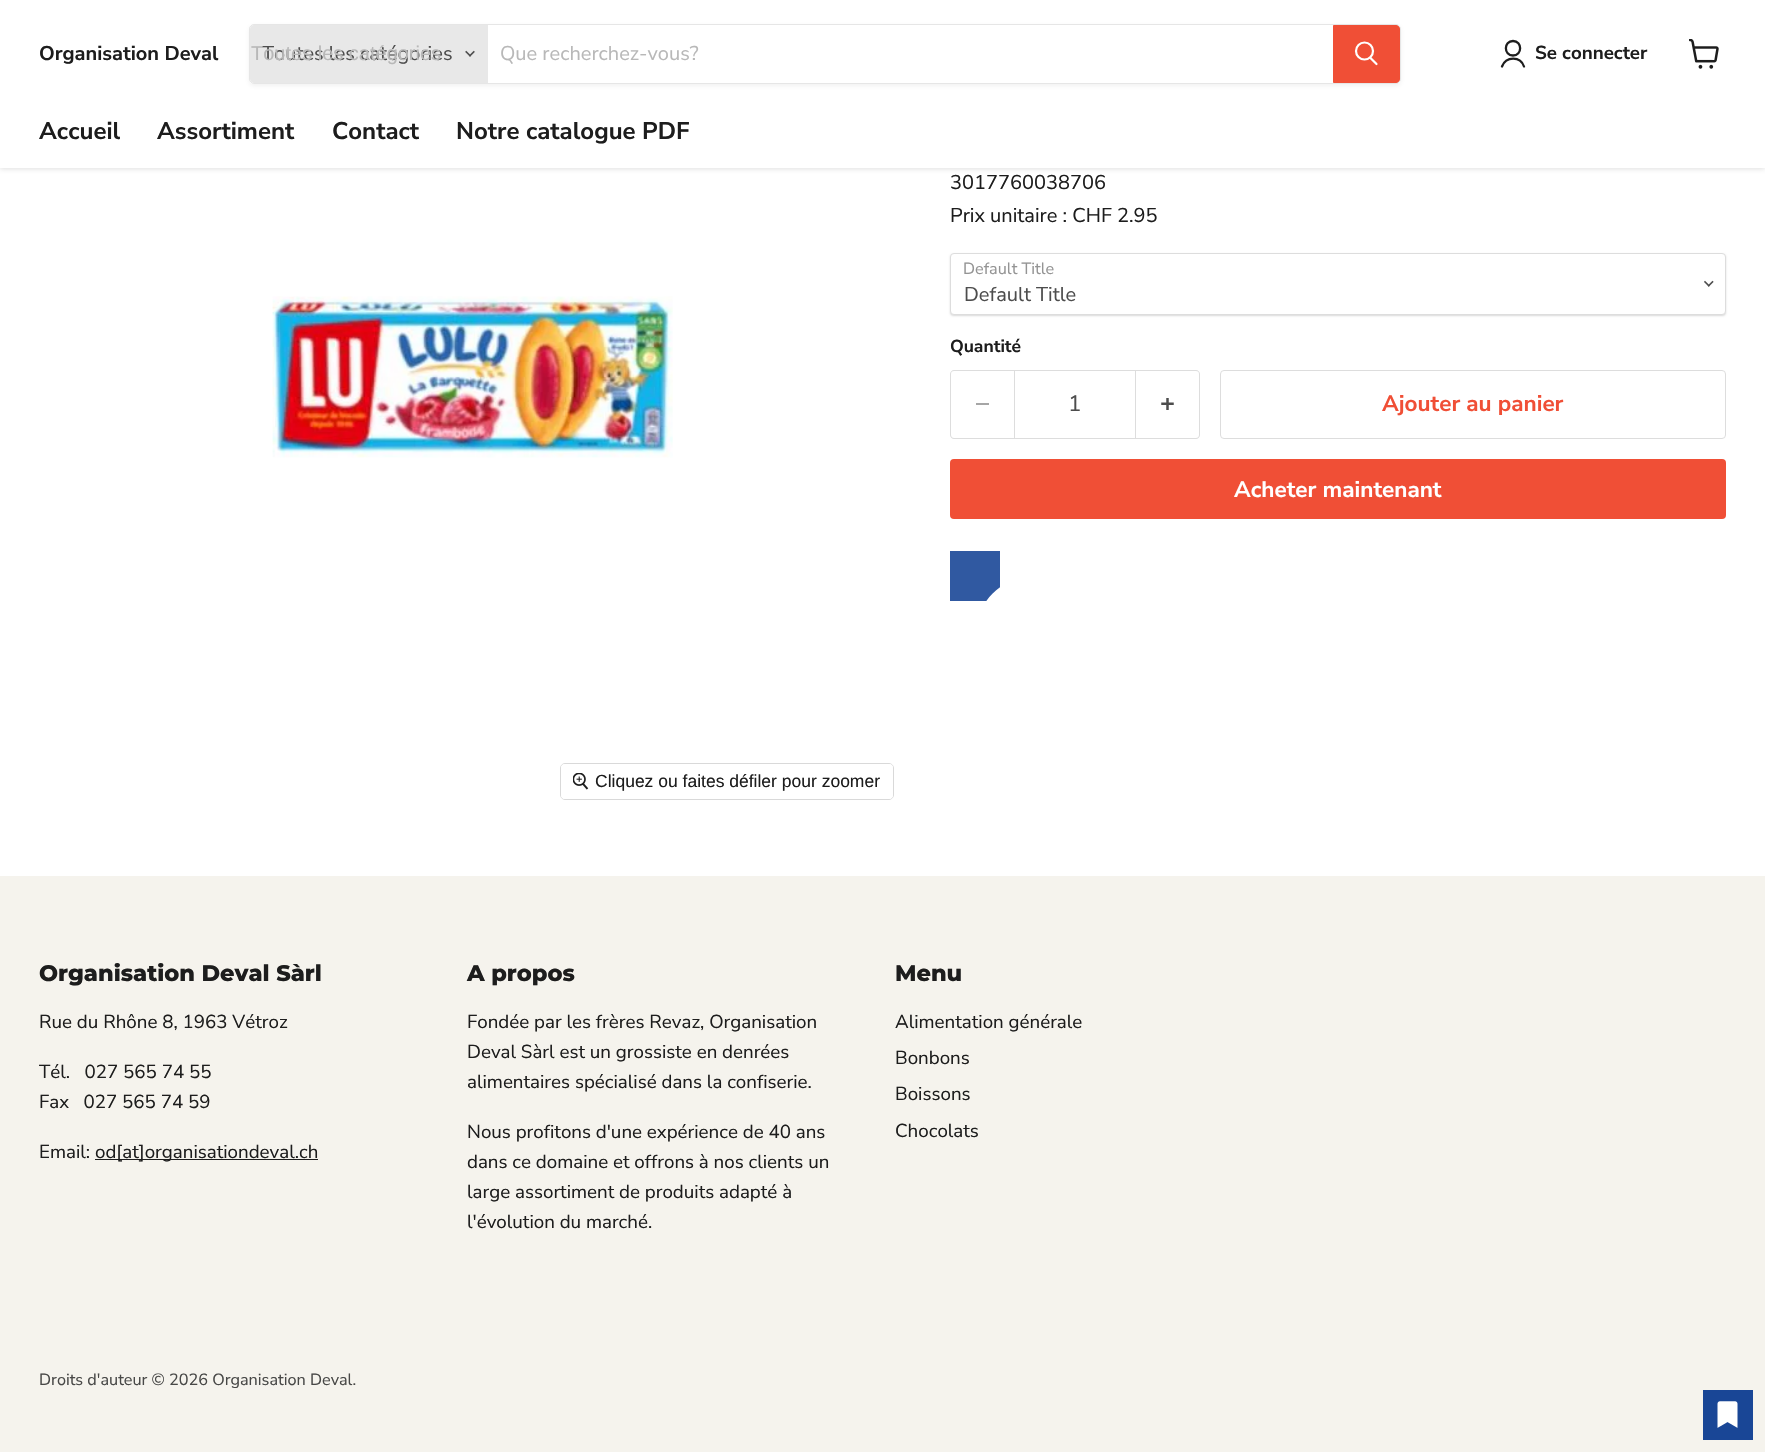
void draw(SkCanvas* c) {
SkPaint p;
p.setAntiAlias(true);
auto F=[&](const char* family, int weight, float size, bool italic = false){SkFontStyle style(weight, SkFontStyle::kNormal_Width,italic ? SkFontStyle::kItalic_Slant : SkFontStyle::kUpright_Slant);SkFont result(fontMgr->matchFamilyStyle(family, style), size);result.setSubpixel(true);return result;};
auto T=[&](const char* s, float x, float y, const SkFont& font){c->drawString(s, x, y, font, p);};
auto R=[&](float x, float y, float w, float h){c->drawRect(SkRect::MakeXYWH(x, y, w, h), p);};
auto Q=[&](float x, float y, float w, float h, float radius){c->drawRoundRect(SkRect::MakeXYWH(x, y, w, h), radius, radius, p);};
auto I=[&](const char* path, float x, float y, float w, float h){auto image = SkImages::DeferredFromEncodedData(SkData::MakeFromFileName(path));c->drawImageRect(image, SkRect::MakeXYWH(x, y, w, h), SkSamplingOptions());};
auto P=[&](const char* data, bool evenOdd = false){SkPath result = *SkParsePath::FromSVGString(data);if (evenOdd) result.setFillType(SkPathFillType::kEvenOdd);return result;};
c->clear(0xffffffff);
p.setColor(0x40808080);
p.setMaskFilter(SkMaskFilter::MakeBlur(kNormal_SkBlurStyle, 2.5));
c->drawRect(SkRect::MakeXYWH(0,1,1765,168),p);
p.setMaskFilter(nullptr);
p.setColor(0xffffffff);
R(0,0,1765,168);
auto f1 = F("Nunito Sans",700,20);
p.setColor(0xff1d1d1d);
T("Organisation Deval",39,60,f1);
c->save();
c->clipPath(P("M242 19h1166v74h-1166zm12 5h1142c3 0 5 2 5 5v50c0 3-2 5-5 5h-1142c-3 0-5-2-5-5v-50c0-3 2-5 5-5z",true),true);
p.setColor(0x1c808080);
p.setMaskFilter(SkMaskFilter::MakeBlur(kNormal_SkBlurStyle, 2));
c->drawRoundRect(SkRect::MakeXYWH(249,26,1152,60),5,5,p);
p.setMaskFilter(nullptr);
c->restore();
p.setStroke(true);
p.setStrokeWidth(1);
p.setColor(0x33808080);
c->drawRoundRect(SkRect::MakeXYWH(249.5,24.5,1151,59),4.5,4.5,p);
p.setStroke(false);
p.setColor(0xffe8e8e8);
c->drawPath(P("M254 25h234v58h-234c-2 0-4-2-4-4v-50c0-2 2-4 4-4z"),p);
auto f2 = F("Nunito Sans",400,20);
p.setColor(0xff4d4d4d);
T("Toutes les catégories",262,60,f2);
auto f3 = F("Liberation Sans",400,20);
p.setColor(0xffb8b8b8);
T("Toutes les catégories",251,60,f3);
I("1.png",465,50,10,7);
T("Que recherchez-vous?",500,60,f2);
p.setColor(0xfff04f36);
c->drawPath(P("M1333.5 25.5h62.5c2 0 3.5 1.5 3.5 3.5v50c0 2-1.5 3.5-3.5 3.5h-62.5z"),p);
p.setStroke(true);
c->drawPath(P("M1333.5 25.5h62.5c2 0 3.5 1.5 3.5 3.5v50c0 2-1.5 3.5-3.5 3.5h-62.5z"),p);
p.setStrokeWidth(2.2);
p.setStrokeCap(SkPaint::kRound_Cap);
p.setColor(0xffffffff);
c->drawPath(P("M1376.5 64l-6-6"),p);
p.setStrokeCap(SkPaint::kButt_Cap);
c->drawCircle(1364.5,51,8.5,p);
p.setStrokeWidth(2.3);
p.setStrokeCap(SkPaint::kRound_Cap);
p.setStrokeJoin(SkPaint::kRound_Join);
p.setColor(0xff1d1d1d);
c->drawPath(P("M1513 55.5c9.5 0 9.5-14.5 0-14.5c-9.5 0-9.5 14.5 0 14.5zm11 11c-3.5-10.5-18-10.5-22 0"),p);
auto f4 = F("Nunito Sans",700,18.75);
p.setStroke(false);
T("Se connecter",1535,59,f4);
I("2.png",1689,39,30,30);
auto f5 = F("Nunito Sans",700,24);
T("Accueil",39,139,f5);
T("Assortiment",157,139,f5);
T("Contact",332,139,f5);
T("Notre catalogue PDF",456,139,f5);
T("3017760038706",950,189,f2);
T("Prix unitaire : CHF 2.95",950,222,f2);
p.setColor(0x26000000);
p.setMaskFilter(SkMaskFilter::MakeBlur(kNormal_SkBlurStyle, 1));
c->drawRoundRect(SkRect::MakeXYWH(950,254,776,62),4,4,p);
p.setMaskFilter(nullptr);
p.setColor(0xffffffff);
c->drawRoundRect(SkRect::MakeXYWH(950.5,253.5,775,61),3.5,3.5,p);
p.setStroke(true);
p.setStrokeWidth(1);
p.setStrokeCap(SkPaint::kButt_Cap);
p.setStrokeJoin(SkPaint::kMiter_Join);
p.setColor(0xffdddddd);
c->drawRoundRect(SkRect::MakeXYWH(950.5,253.5,775,61),3.5,3.5,p);
auto f6 = F("Nunito Sans",400,16.25);
p.setStroke(false);
p.setColor(0xff949494);
T("Default Title",963,274,f6);
I("3.png",1704,280,10,7);
p.setColor(0xff4d4d4d);
T("Default Title",964,301,f2);
auto f7 = F("Nunito Sans",700,17.5);
p.setColor(0xff1d1d1d);
T("Quantité",950,352,f7);
p.setColor(0xffdddddd);
c->drawPath(P("M954 370h60v69h-60c-2 0-4-2-4-4v-61c0-2 2-4 4-4zm0 1h60v67h-60c-2 0-3-2-3-3v-61c0-2 1-3 3-3z",true),p);
p.setColor(0xffa6a6a6);
R(976,403,13,2);
p.setStroke(true);
p.setColor(0xffdddddd);
c->drawRect(SkRect::MakeXYWH(1014.5,370.5,121,68),p);
auto f8 = F("Nunito Sans",400,22.5);
p.setStroke(false);
p.setColor(0xff4d4d4d);
T("1",1068,411,f8);
p.setColor(0xffdddddd);
c->drawPath(P("M1136 370h60c2 0 4 2 4 4v61c0 2-2 4-4 4h-60zm0 1h60c2 0 3 1 3 3v61c0 1-1 3-3 3h-60z",true),p);
I("4.png",1161,398,13,12);
p.setStroke(true);
c->drawRoundRect(SkRect::MakeXYWH(1220.5,370.5,505,68),3.5,3.5,p);
auto f9 = F("Nunito Sans",700,22.5);
p.setStroke(false);
p.setColor(0xfff04f36);
T("Ajouter au panier",1382,411,f9);
Q(950,459,776,60,4);
p.setColor(0xffffffff);
T("Acheter maintenant",1234,497,f9);
p.setColor(0xff3059a1);
R(950,551,50,50);
c->save();
c->clipRect(SkRect::MakeXYWH(950,551,50,50));
p.setColor(0xffffffff);
c->drawPath(P("M1395 576h-360c-33 0-60 27-60 60v580l240-140l240 140v-580c0-33-27-60-60-60zm0 536l-180-105l-180 105v-468c0-4 3-8 7-8h346c4 0 7 4 7 8z"),p);
c->restore();
I("5.png",272,296,401,162);
p.setStroke(true);
p.setColor(0xffd9d9d9);
c->drawRoundRect(SkRect::MakeXYWH(560.5,763.5,333,36),4.5,4.5,p);
p.setStroke(false);
p.setColor(0xe6ffffff);
Q(561,764,332,35,4);
I("6.png",573,773,16,17);
auto f10 = F("Liberation Sans",400,17.5);
p.setColor(0xff1d1d1d);
T("Cliquez ou faites défiler pour zoomer",595,787,f10);
p.setColor(0xfff5f3ed);
R(0,876,1765,576);
auto f11 = F("Montserrat",800,22.5);
p.setColor(0xff1d1d1d);
T("Organisation Deval Sàrl",39,981,f11);
auto f12 = F("Nunito Sans",400,18.75);
T("Rue du Rhône 8, 1963 Vétroz",39,1028,f12);
T("Tél.   027 565 74 55",39,1078,f12);
T("Fax   027 565 74 59",39,1108,f12);
T("Email:",39,1158,f12);
R(95,1159,223,1);
T("od[at]organisationdeval.ch",95,1158,f12);
T("A propos",467,981,f11);
T("Fondée par les frères Revaz, Organisation",467,1028,f12);
T("Deval Sàrl est un grossiste en denrées",467,1058,f12);
T("alimentaires spécialisé dans la confiserie.",467,1088,f12);
T("Nous profitons d'une expérience de 40 ans",467,1138,f12);
T("dans ce domaine et offrons à nos clients un",467,1168,f12);
T("large assortiment de produits adapté à",467,1198,f12);
T("l'évolution du marché.",467,1228,f12);
T("Menu",895,981,f11);
T("Alimentation générale",895,1028,f12);
T("Bonbons",895,1064,f12);
T("Boissons",895,1100,f12);
T("Chocolats",895,1137,f12);
p.setColor(0xff484847);
T("Droits d'auteur © 2026 Organisation Deval.",39,1385,f6);
p.setColor(0xff194696);
R(1703,1390,50,50);
I("7.png",1717,1401,21,27);
}
